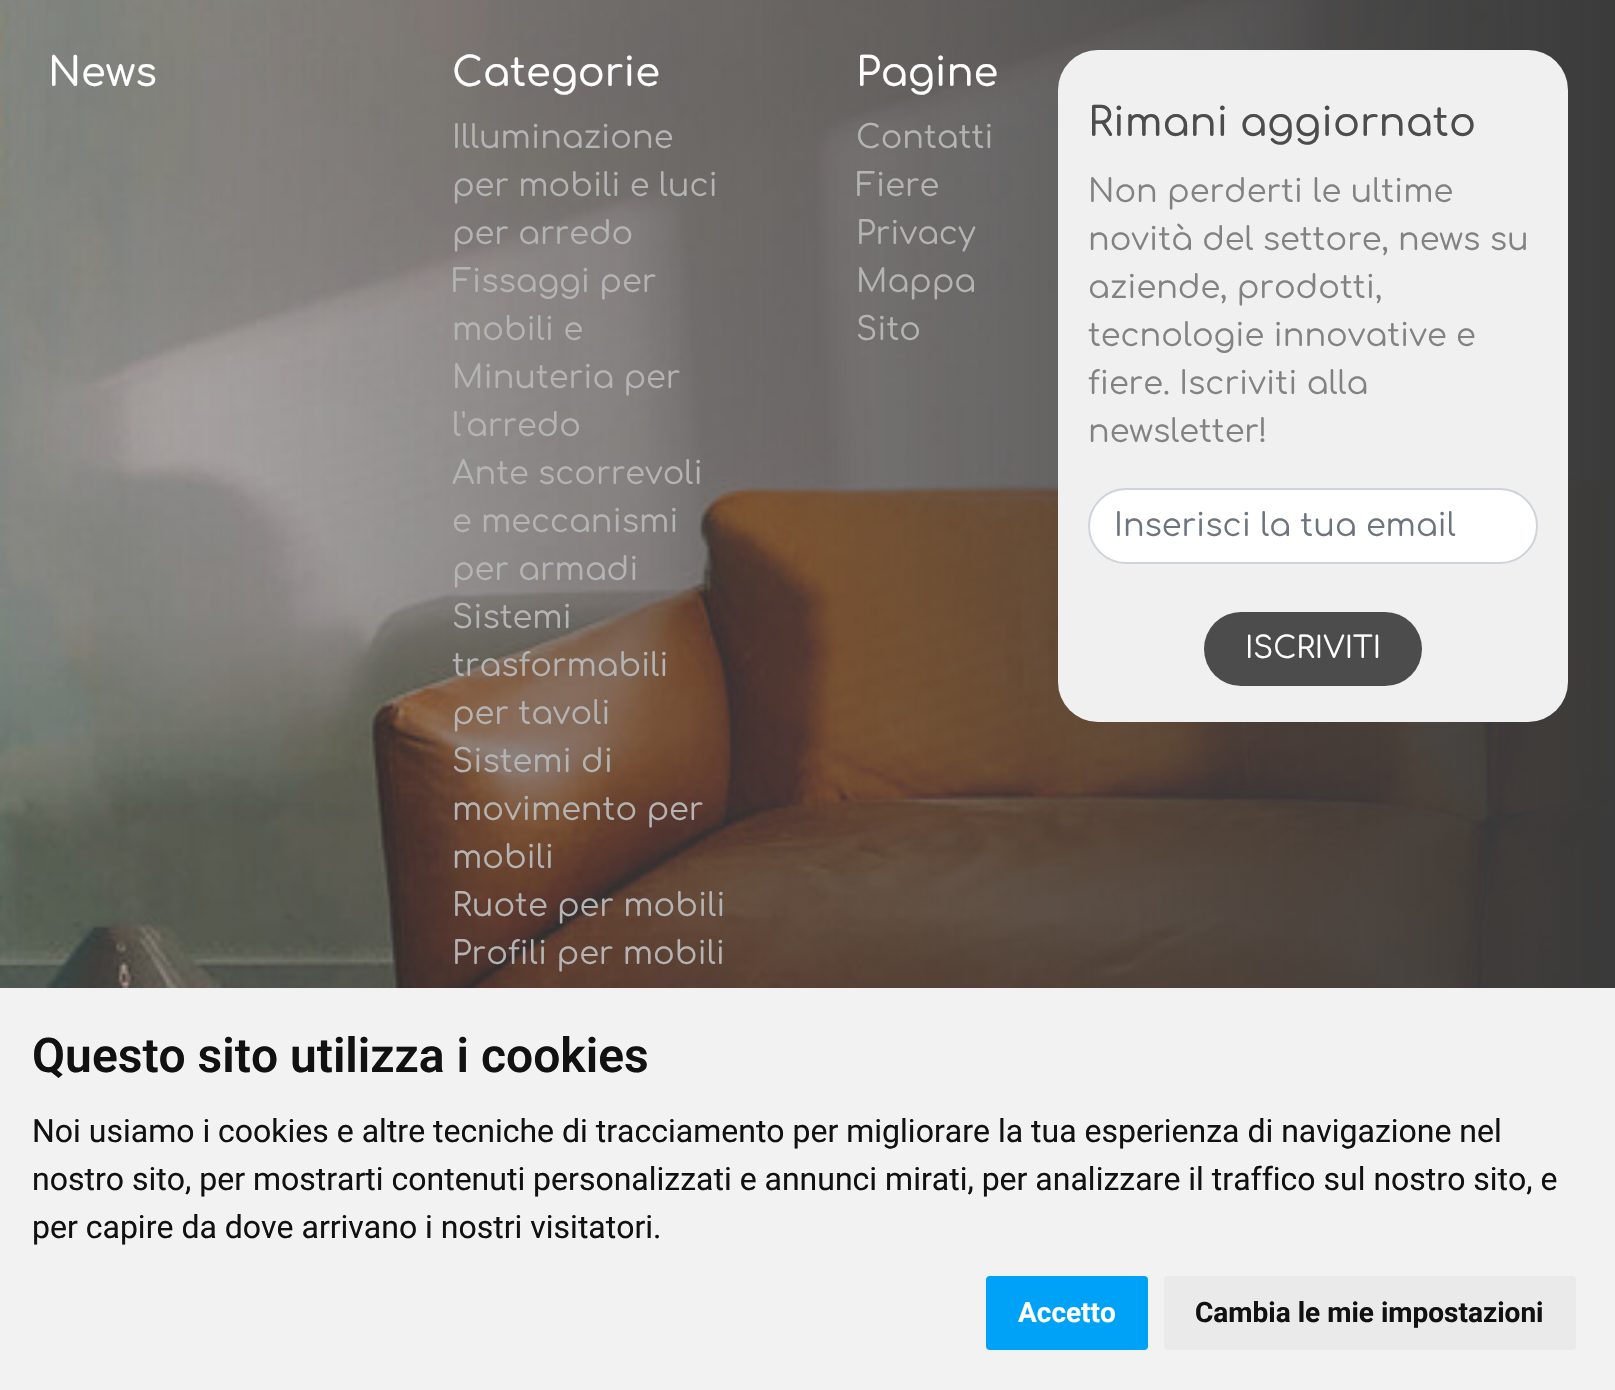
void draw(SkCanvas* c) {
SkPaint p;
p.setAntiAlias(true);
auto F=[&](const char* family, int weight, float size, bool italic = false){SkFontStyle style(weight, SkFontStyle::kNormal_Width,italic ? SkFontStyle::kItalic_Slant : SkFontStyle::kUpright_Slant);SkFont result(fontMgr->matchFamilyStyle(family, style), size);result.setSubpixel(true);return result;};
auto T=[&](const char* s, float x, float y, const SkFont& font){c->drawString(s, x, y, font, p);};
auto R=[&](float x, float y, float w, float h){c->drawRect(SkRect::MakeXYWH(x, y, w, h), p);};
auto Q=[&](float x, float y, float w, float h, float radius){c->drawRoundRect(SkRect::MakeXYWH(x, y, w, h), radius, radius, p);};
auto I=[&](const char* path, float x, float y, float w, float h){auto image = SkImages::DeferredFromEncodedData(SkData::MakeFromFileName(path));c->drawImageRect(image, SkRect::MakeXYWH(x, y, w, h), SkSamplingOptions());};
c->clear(0xffffffff);
I("1.png",0,0,1615,988);
auto f1 = F("Comfortaa",500,40);
p.setColor(0xffffffff);
T("News",48,86,f1);
T("Categorie",452,86,f1);
auto f2 = F("Comfortaa",400,32);
p.setColor(0xffb4b4b4);
T("Illuminazione",452,148,f2);
T("per mobili e luci",452,196,f2);
T("per arredo",452,244,f2);
T("Fissaggi per",452,292,f2);
T("mobili e",452,340,f2);
T("Minuteria per",452,388,f2);
T("l'arredo",452,436,f2);
T("Ante scorrevoli",452,484,f2);
T("e meccanismi",452,532,f2);
T("per armadi",452,580,f2);
T("Sistemi",452,628,f2);
T("trasformabili",452,676,f2);
T("per tavoli",452,724,f2);
T("Sistemi di",452,772,f2);
T("movimento per",452,820,f2);
T("mobili",452,868,f2);
T("Ruote per mobili",452,916,f2);
T("Profili per mobili",452,964,f2);
p.setColor(0xffffffff);
T("Pagine",856,86,f1);
p.setColor(0xffb4b4b4);
T("Contatti",856,148,f2);
T("Fiere",856,196,f2);
T("Privacy",856,244,f2);
T("Mappa",856,292,f2);
T("Sito",856,340,f2);
p.setColor(0xfff0f0f0);
Q(1058,50,510,672,40);
p.setColor(0xff4c4c4c);
T("Rimani aggiornato",1088,136,f1);
p.setColor(0xff828282);
T("Non perderti le ultime",1088,202,f2);
T("novità del settore, news su",1088,250,f2);
T("aziende, prodotti,",1088,298,f2);
T("tecnologie innovative e",1088,346,f2);
T("fiere. Iscriviti alla",1088,394,f2);
T("newsletter!",1088,442,f2);
p.setColor(0xffffffff);
c->drawRoundRect(SkRect::MakeXYWH(1089,489,448,74),37,37,p);
p.setStroke(true);
p.setStrokeWidth(2);
p.setColor(0xffced4da);
c->drawRoundRect(SkRect::MakeXYWH(1089,489,448,74),37,37,p);
p.setStroke(false);
p.setColor(0xff6c757d);
T("Inserisci la tua email",1114,536,f2);
p.setColor(0xff4c4c4c);
Q(1204,612,218,74,37);
auto f3 = F("Comfortaa",400,30);
p.setColor(0xffffffff);
T("ISCRIVITI",1245,658,f3);
p.setColor(0xfff2f2f2);
R(0,988,1615,402);
auto f4 = F("Roboto",600,48);
p.setColor(0xff111111);
T("Questo sito utilizza i cookies",32,1072,f4);
auto f5 = F("Roboto",400,32);
T("Noi usiamo i cookies e altre tecniche di tracciamento per migliorare la tua esperienza di navigazione nel",32,1142,f5);
T("nostro sito, per mostrarti contenuti personalizzati e annunci mirati, per analizzare il traffico sul nostro sito, e",32,1190,f5);
T("per capire da dove arrivano i nostri visitatori.",32,1238,f5);
p.setColor(0xff00a2f8);
Q(986,1276,162,74,4);
auto f6 = F("Roboto",700,28);
p.setColor(0xffffffff);
T("Accetto",1018,1322,f6);
p.setColor(0xffeaeaea);
Q(1164,1276,412,74,4);
p.setColor(0xff111111);
T("Cambia le mie impostazioni",1195,1322,f6);
}
